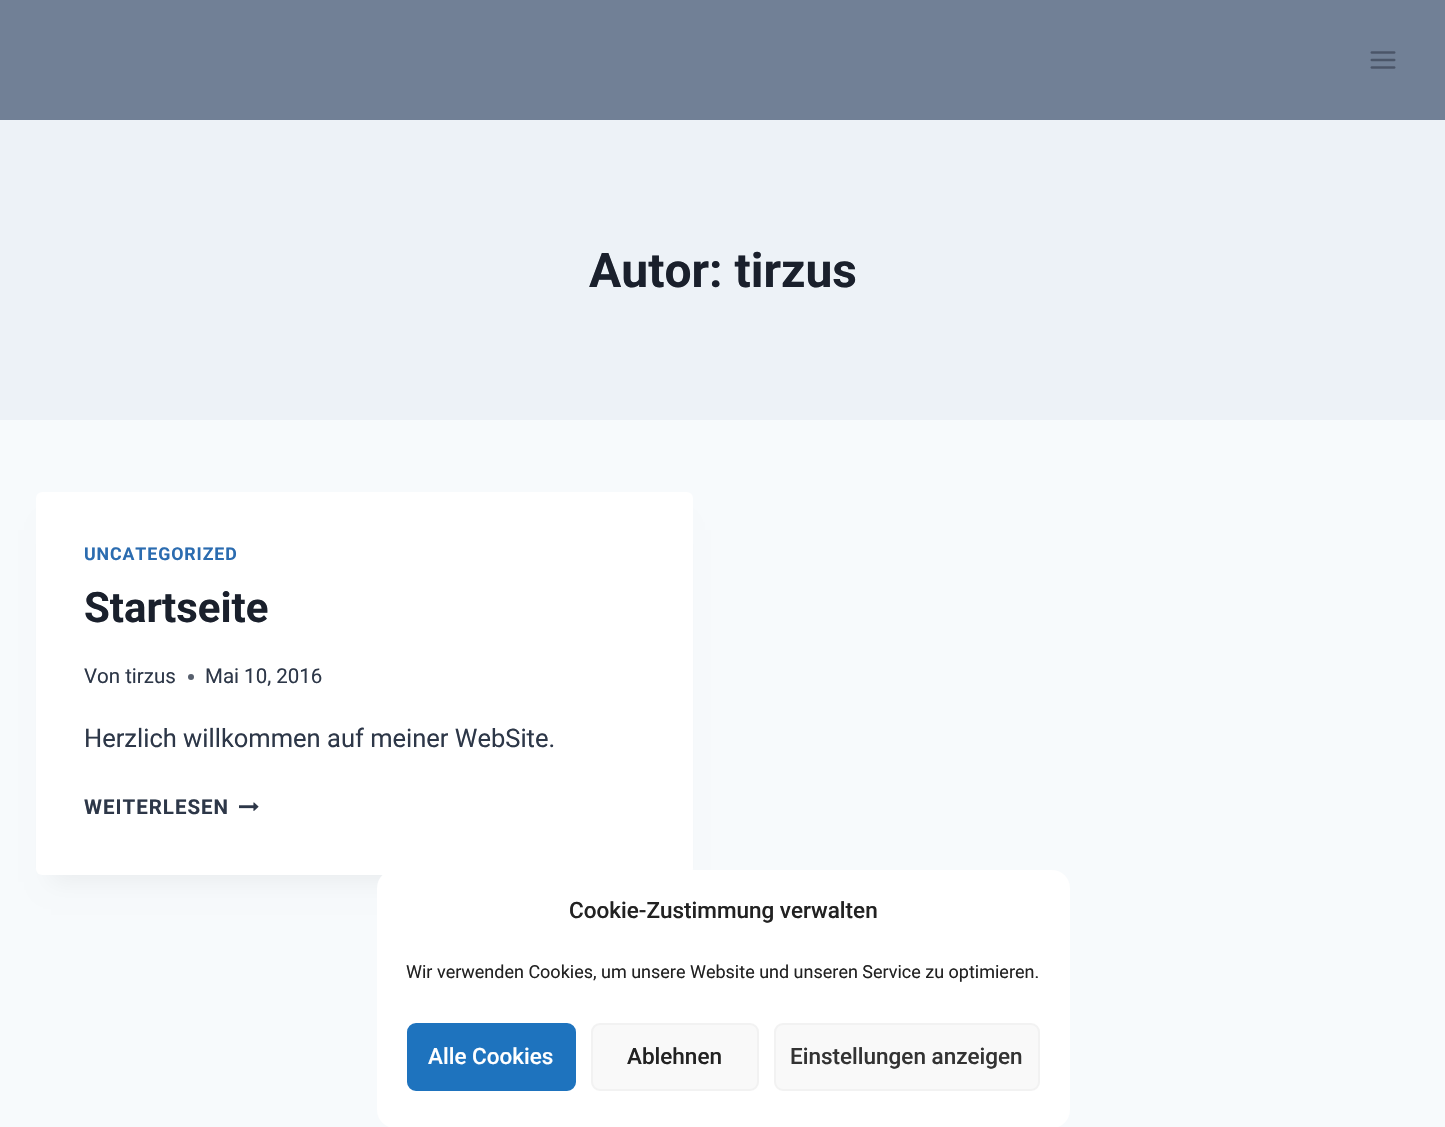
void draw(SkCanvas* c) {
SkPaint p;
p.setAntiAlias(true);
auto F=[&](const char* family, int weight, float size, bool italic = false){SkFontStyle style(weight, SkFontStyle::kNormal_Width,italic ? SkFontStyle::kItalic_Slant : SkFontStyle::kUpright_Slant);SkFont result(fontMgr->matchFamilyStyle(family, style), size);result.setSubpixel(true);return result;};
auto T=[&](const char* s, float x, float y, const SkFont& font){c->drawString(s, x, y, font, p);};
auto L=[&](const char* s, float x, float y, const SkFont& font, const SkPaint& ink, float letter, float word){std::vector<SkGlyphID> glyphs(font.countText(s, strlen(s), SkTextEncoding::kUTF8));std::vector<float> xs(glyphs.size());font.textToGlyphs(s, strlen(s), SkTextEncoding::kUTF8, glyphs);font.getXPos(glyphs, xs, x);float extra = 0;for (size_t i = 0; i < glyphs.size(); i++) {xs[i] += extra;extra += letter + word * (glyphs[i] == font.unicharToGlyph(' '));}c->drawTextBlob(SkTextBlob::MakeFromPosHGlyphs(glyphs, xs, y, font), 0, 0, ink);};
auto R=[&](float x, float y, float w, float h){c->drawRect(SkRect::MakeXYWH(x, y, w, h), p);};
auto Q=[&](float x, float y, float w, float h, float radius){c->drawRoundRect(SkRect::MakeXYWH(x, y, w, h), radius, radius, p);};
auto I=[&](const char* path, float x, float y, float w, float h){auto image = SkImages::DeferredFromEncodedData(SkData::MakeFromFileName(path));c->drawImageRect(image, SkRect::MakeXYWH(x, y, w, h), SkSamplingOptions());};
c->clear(0xfff7fafc);
p.setColor(0xff718096);
R(0,0,1445,120);
I("1.png",1370,51,26,18);
p.setColor(0xffedf2f7);
R(0,120,1445,300);
auto f1 = F("Roboto",700,48);
p.setColor(0xff1a202c);
T("Autor: tirzus",589,287,f1);
p.setColor(0x0d000000);
p.setMaskFilter(SkMaskFilter::MakeBlur(kNormal_SkBlurStyle, 11));
c->drawRect(SkRect::MakeXYWH(51,530,627,352),p);
p.setMaskFilter(nullptr);
p.setColor(0xffffffff);
Q(36,492,657,383,6);
auto f2 = F("Roboto",700,17.75);
p.setColor(0xff2b6cb0);
L("UNCATEGORIZED",84,560,f2,p,.9,0);
auto f3 = F("Roboto",700,42);
p.setColor(0xff1a202c);
T("Startseite",84,622,f3);
auto f4 = F("Roboto",400,20.5);
p.setColor(0xff2d3748);
T("Von tirzus",84,683,f4);
p.setColor(0xff575f6d);
c->drawCircle(191,677,3,p);
p.setColor(0xff2d3748);
T("Mai 10, 2016",205,683,f4);
auto f5 = F("Roboto",400,25.5);
T("Herzlich willkommen auf meiner WebSite.",84,747,f5);
auto f6 = F("Roboto",700,20.5);
L("WEITERLESEN",84,814,f6,p,1,0);
I("2.png",239,802,20,9);
p.setColor(0xffffffff);
Q(377,870,693,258,18);
auto f7 = F("Roboto",500,22.5);
p.setColor(0xff222222);
T("Cookie-Zustimmung verwalten",569,918,f7);
auto f8 = F("Roboto",400,18);
T("Wir verwenden Cookies, um unsere Website und unseren Service zu optimieren.",406,978,f8);
p.setColor(0xff1e73be);
c->drawRoundRect(SkRect::MakeXYWH(408,1024,167,66),8,8,p);
p.setStroke(true);
p.setStrokeWidth(2);
c->drawRoundRect(SkRect::MakeXYWH(408,1024,167,66),8,8,p);
p.setStroke(false);
p.setColor(0xffffffff);
T("Alle Cookies",428,1064,f7);
p.setColor(0xfff9f9f9);
c->drawRoundRect(SkRect::MakeXYWH(592,1024,166,66),8,8,p);
p.setStroke(true);
p.setColor(0xfff2f2f2);
c->drawRoundRect(SkRect::MakeXYWH(592,1024,166,66),8,8,p);
p.setStroke(false);
p.setColor(0xff222222);
T("Ablehnen",627,1064,f7);
p.setColor(0xfff9f9f9);
c->drawRoundRect(SkRect::MakeXYWH(775,1024,264,66),8,8,p);
p.setStroke(true);
p.setColor(0xfff2f2f2);
c->drawRoundRect(SkRect::MakeXYWH(775,1024,264,66),8,8,p);
p.setStroke(false);
p.setColor(0xff333333);
T("Einstellungen anzeigen",790,1064,f7);
}
